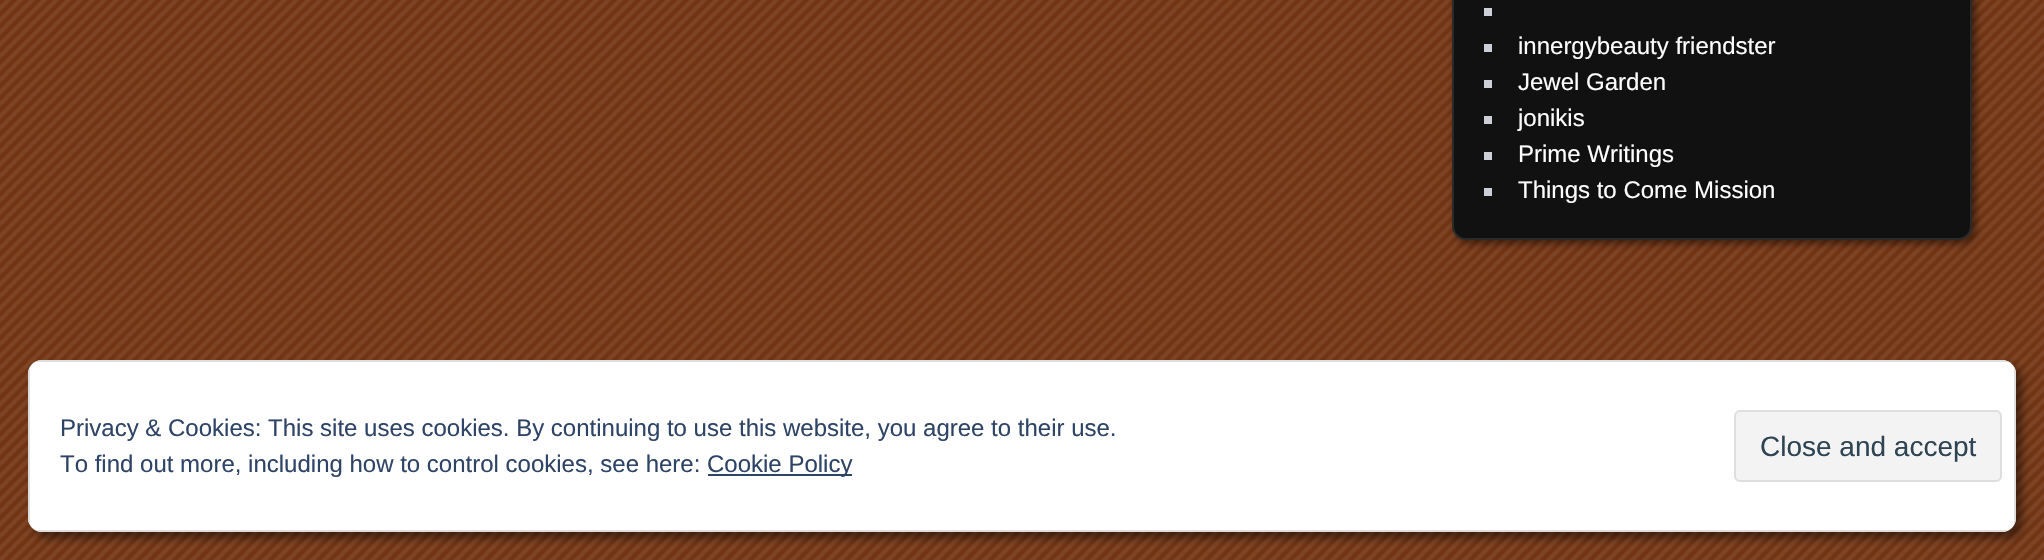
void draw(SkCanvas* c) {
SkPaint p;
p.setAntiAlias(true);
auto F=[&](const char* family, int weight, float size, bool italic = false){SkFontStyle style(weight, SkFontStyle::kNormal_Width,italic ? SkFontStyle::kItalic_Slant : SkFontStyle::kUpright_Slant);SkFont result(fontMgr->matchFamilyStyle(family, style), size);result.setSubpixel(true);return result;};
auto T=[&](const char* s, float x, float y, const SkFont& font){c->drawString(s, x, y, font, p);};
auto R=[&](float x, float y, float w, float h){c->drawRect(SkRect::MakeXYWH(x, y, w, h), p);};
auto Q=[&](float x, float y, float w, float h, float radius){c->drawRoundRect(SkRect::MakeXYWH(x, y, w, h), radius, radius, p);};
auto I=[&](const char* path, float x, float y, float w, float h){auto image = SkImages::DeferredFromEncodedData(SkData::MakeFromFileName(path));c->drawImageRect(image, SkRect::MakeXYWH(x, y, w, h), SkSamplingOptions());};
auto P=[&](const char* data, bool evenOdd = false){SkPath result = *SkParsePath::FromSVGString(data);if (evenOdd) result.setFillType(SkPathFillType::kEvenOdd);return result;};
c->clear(0xff70310f);
I("1.png",0,0,2044,560);
p.setColor(0x73000000);
p.setMaskFilter(SkMaskFilter::MakeBlur(kNormal_SkBlurStyle, 3.5));
c->drawRoundRect(SkRect::MakeXYWH(1456,-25,520,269),14,14,p);
p.setMaskFilter(nullptr);
p.setColor(0xff111111);
Q(1452,-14,520,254,14);
p.setStroke(true);
p.setStrokeWidth(2);
p.setColor(0x1affffff);
c->drawRoundRect(SkRect::MakeXYWH(1453,-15,518,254),13,13,p);
p.setStroke(false);
p.setColor(0xffcccfd7);
R(1484,8,8,8);
R(1484,44,8,8);
auto f1 = F("Liberation Sans",400,24);
p.setColor(0xffffffff);
T("innergybeauty friendster",1518,54,f1);
p.setColor(0xffcccfd7);
R(1484,80,8,8);
p.setColor(0xffffffff);
T("Jewel Garden",1518,90,f1);
p.setColor(0xffcccfd7);
R(1484,116,8,8);
p.setColor(0xffffffff);
T("jonikis",1518,126,f1);
p.setColor(0xffcccfd7);
R(1484,152,8,8);
p.setColor(0xffffffff);
T("Prime Writings",1518,162,f1);
p.setColor(0xffcccfd7);
R(1484,188,8,8);
p.setColor(0xffffffff);
T("Things to Come Mission",1518,198,f1);
p.setColor(0x73000000);
p.setMaskFilter(SkMaskFilter::MakeBlur(kNormal_SkBlurStyle, 4));
c->drawRoundRect(SkRect::MakeXYWH(34,366,1988,172),14,14,p);
p.setMaskFilter(nullptr);
p.setColor(0xffffffff);
Q(28,360,1988,172,14);
p.setColor(0xffdedede);
c->drawPath(P("M28 374v144c0 3 1 5 2 7v-158c-1 2-2 4-2 7zm14-14c-3 0-5 1-7 2h1974c-2-1-4-2-7-2zm1974 14c0-3-1-5-2-7v158c1-2 2-4 2-7zm-14 158c3 0 5-1 7-2h-1974c2 1 4 2 7 2z",true),p);
p.setColor(0xff2e4467);
T("Privacy & Cookies: This site uses cookies. By continuing to use this website, you agree to their use.",60,436,f1);
p.setColor(0xfff3f3f3);
c->drawRoundRect(SkRect::MakeXYWH(1735,411,266,70),5,5,p);
p.setStroke(true);
p.setColor(0xffdedede);
c->drawRoundRect(SkRect::MakeXYWH(1735,411,266,70),5,5,p);
auto f2 = F("Liberation Sans",400,28);
p.setStroke(false);
p.setColor(0xff2e4453);
T("Close and accept",1760,456,f2);
p.setColor(0xff2e4467);
T("To find out more, including how to control cookies, see here:",60,472,f1);
R(708,474,144,2);
T("Cookie Policy",707,472,f1);
}
